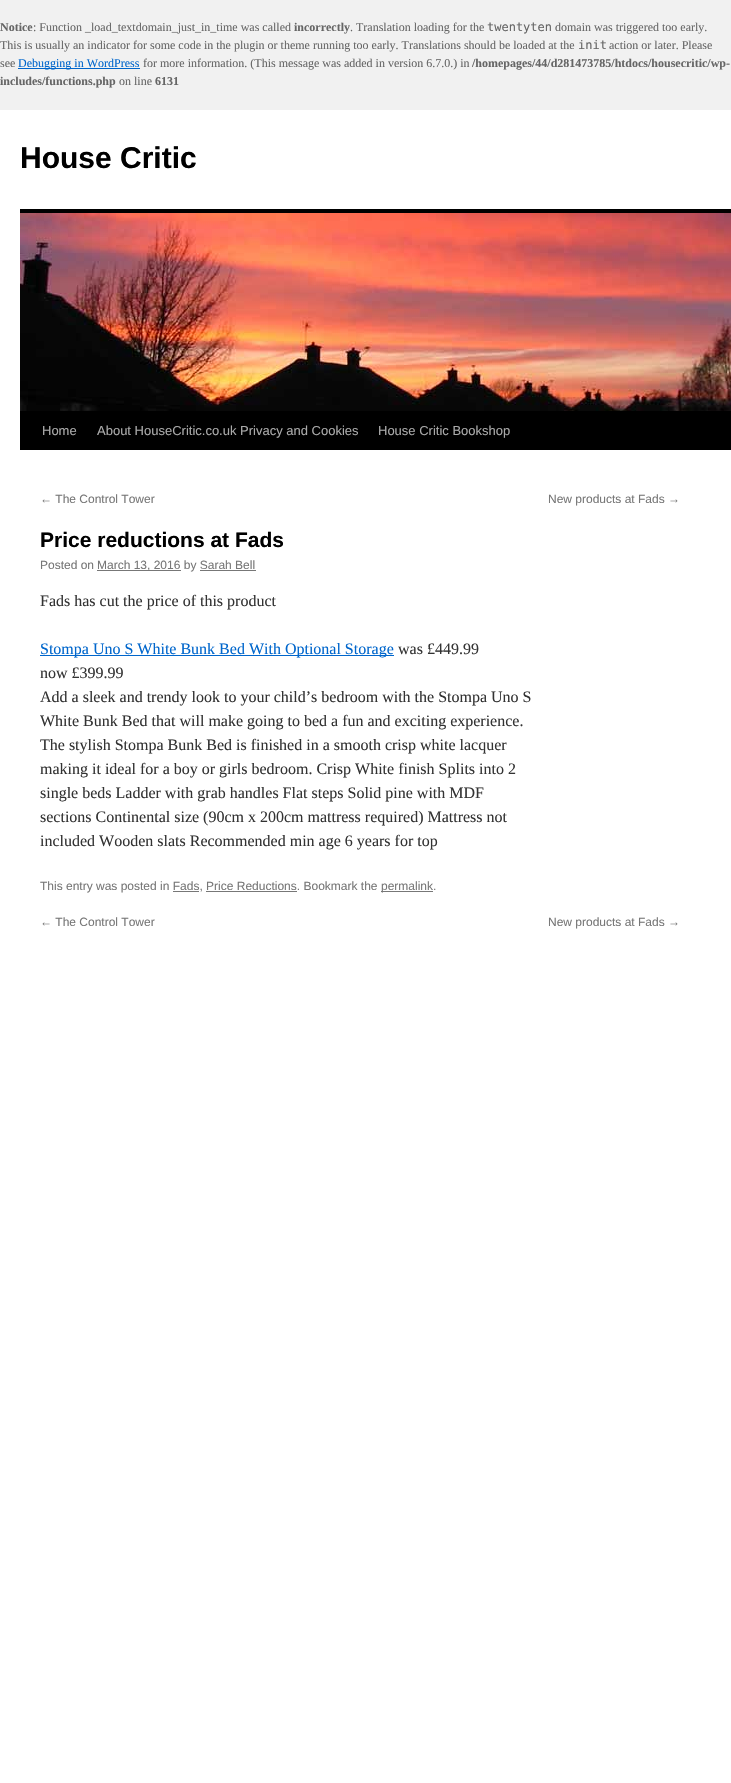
void draw(SkCanvas* c) {
SkPaint p;
p.setAntiAlias(true);
auto F=[&](const char* family, int weight, float size, bool italic = false){SkFontStyle style(weight, SkFontStyle::kNormal_Width,italic ? SkFontStyle::kItalic_Slant : SkFontStyle::kUpright_Slant);SkFont result(fontMgr->matchFamilyStyle(family, style), size);result.setSubpixel(true);return result;};
auto T=[&](const char* s, float x, float y, const SkFont& font){c->drawString(s, x, y, font, p);};
auto R=[&](float x, float y, float w, float h){c->drawRect(SkRect::MakeXYWH(x, y, w, h), p);};
auto I=[&](const char* path, float x, float y, float w, float h){auto image = SkImages::DeferredFromEncodedData(SkData::MakeFromFileName(path));c->drawImageRect(image, SkRect::MakeXYWH(x, y, w, h), SkSamplingOptions());};
c->clear(0xfff1f1f1);
auto f1 = F("Liberation Serif",700,12);
p.setColor(0xff666666);
T("Notice",0,31,f1);
auto f2 = F("Liberation Serif",400,12);
T(": Function _load_textdomain_just_in_time was called",33,31,f2);
T("incorrectly",294,31,f1);
T(". Translation loading for the",350,31,f2);
auto f3 = F("DejaVu Sans Mono",400,12);
T("twentyten",487,31,f3);
T("domain was triggered too early.",555,31,f2);
T("This is usually an indicator for some code in the plugin or theme running too early. Translations should be loaded at the",0,49,f2);
T("init",578,49,f3);
T("action or later. Please",609,49,f2);
T("see",0,67,f2);
p.setColor(0xff0066cc);
R(18,68,122,1);
T("Debugging in WordPress",18,67,f2);
p.setColor(0xff666666);
T("for more information. (This message was added in version 6.7.0.) in",143,67,f2);
T("/homepages/44/d281473785/htdocs/housecritic/wp-",472,67,f1);
T("includes/functions.php",0,85,f1);
T("on line",119,85,f2);
T("6131",155,85,f1);
p.setColor(0xffffffff);
R(0,110,731,1673);
auto f4 = F("Liberation Sans",700,30);
p.setColor(0xff000000);
T("House Critic",20,168,f4);
R(20,209,711,4);
R(20,411,711,39);
I("1.png",20,213,711,198);
auto f5 = F("Liberation Sans",400,13);
p.setColor(0xffaaaaaa);
T("Home",42,435,f5);
T("About HouseCritic.co.uk Privacy and Cookies",97,435,f5);
T("House Critic Bookshop",378,435,f5);
auto f6 = F("Liberation Sans",400,12);
p.setColor(0xff777777);
T("← The Control Tower",40,503,f6);
T("New products at Fads →",548,503,f6);
auto f7 = F("Liberation Sans",700,21);
p.setColor(0xff000000);
T("Price reductions at Fads",40,547,f7);
p.setColor(0xff777777);
T("Posted on",40,569,f6);
R(97,570,84,1);
T("March 13, 2016 by Sarah Bell",97,569,f6);
R(200,570,56,1);
auto f8 = F("Liberation Serif",400,16);
p.setColor(0xff333333);
T("Fads has cut the price of this product",40,606,f8);
p.setColor(0xff0066cc);
R(40,655,354,1);
T("Stompa Uno S White Bunk Bed With Optional Storage",40,654,f8);
p.setColor(0xff333333);
T("was £449.99",398,654,f8);
T("now £399.99",40,678,f8);
T("Add a sleek and trendy look to your child’s bedroom with the Stompa Uno S",40,702,f8);
T("White Bunk Bed that will make going to bed a fun and exciting experience.",40,726,f8);
T("The stylish Stompa Bunk Bed is finished in a smooth crisp white lacquer",40,750,f8);
T("making it ideal for a boy or girls bedroom. Crisp White finish Splits into 2",40,774,f8);
T("single beds Ladder with grab handles Flat steps Solid pine with MDF",40,798,f8);
T("sections Continental size (90cm x 200cm mattress required) Mattress not",40,822,f8);
T("included Wooden slats Recommended min age 6 years for top",40,846,f8);
p.setColor(0xff777777);
T("This entry was posted in Fads, Price Reductions. Bookmark the",40,890,f6);
R(381,891,52,1);
T("permalink.",381,890,f6);
R(173,891,26,1);
R(206,891,91,1);
T("← The Control Tower",40,926,f6);
T("New products at Fads →",548,926,f6);
}
